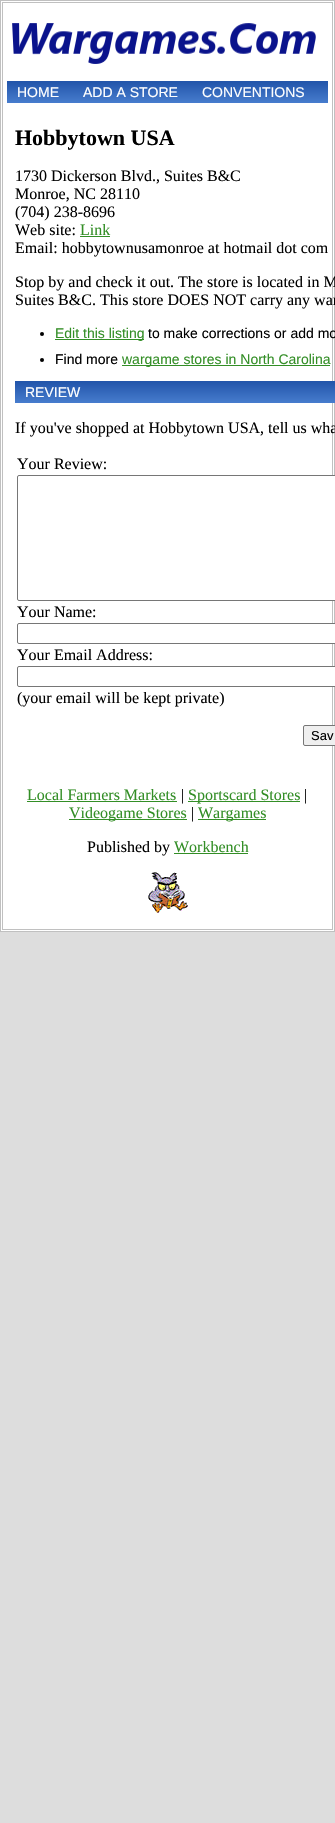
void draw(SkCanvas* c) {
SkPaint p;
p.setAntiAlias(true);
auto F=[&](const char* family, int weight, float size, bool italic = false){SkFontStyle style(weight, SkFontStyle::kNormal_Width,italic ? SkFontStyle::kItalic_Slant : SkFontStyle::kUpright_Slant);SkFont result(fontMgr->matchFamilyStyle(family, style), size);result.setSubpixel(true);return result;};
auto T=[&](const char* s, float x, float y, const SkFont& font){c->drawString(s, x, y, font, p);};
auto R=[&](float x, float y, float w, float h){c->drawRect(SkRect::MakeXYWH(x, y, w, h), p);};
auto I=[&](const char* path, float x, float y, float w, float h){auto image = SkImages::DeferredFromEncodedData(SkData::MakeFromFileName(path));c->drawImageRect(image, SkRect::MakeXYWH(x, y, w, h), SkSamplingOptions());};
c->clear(0xffdddddd);
p.setColor(0xffffffff);
c->drawRect(SkRect::MakeXYWH(.5,.5,334,931),p);
p.setStroke(true);
p.setStrokeWidth(1);
p.setColor(0xffc0c0c0);
c->drawRect(SkRect::MakeXYWH(.5,.5,334,931),p);
c->drawRect(SkRect::MakeXYWH(2.5,2.5,330,927),p);
I("1.png",12,23,304,41);
I("2.png",7,81,321,22);
auto f1 = F("Liberation Sans",400,14);
p.setStroke(false);
p.setColor(0xffffffff);
T("HOME",17,97,f1);
T("ADD A STORE",83,97,f1);
T("CONVENTIONS",202,97,f1);
auto f2 = F("Liberation Serif",700,22);
p.setColor(0xff000000);
T("Hobbytown USA",15,145,f2);
auto f3 = F("Liberation Serif",400,16);
T("1730 Dickerson Blvd., Suites B&C",15,181,f3);
T("Monroe, NC 28110",15,199,f3);
T("(704) 238-8696",15,217,f3);
T("Web site:",15,235,f3);
p.setColor(0xff338e26);
T("Link",80,235,f3);
R(80,236,30,1);
p.setColor(0xff000000);
T("Email: hobbytownusamonroe at hotmail dot com",15,253,f3);
T("Stop by and check it out. The store is located in M",15,287,f3);
T("Suites B&C. This store DOES NOT carry any war",15,305,f3);
c->drawCircle(42,334,2,p);
p.setColor(0xff338e26);
R(55,339,89,1);
T("Edit this listing",55,338,f1);
p.setColor(0xff000000);
T("to make corrections or add mo",148,338,f1);
c->drawCircle(42,360,2,p);
T("Find more",55,364,f1);
p.setColor(0xff338e26);
R(122,365,208,1);
T("wargame stores in North Carolina",122,364,f1);
I("3.png",15,381,320,22);
p.setColor(0xffffffff);
T("REVIEW",25,397,f1);
p.setColor(0xff000000);
T("If you've shopped at Hobbytown USA, tell us wha",15,433,f3);
T("Your Review:",17,469,f3);
p.setColor(0xffffffff);
c->drawRoundRect(SkRect::MakeXYWH(17.5,475.5,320,125),1.5,1.5,p);
p.setStroke(true);
p.setColor(0xff767676);
c->drawRoundRect(SkRect::MakeXYWH(17.5,475.5,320,125),1.5,1.5,p);
p.setStroke(false);
p.setColor(0xff000000);
T("Your Name:",17,617,f3);
p.setColor(0xffffffff);
c->drawRoundRect(SkRect::MakeXYWH(17.5,623.5,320,20),1.5,1.5,p);
p.setStroke(true);
p.setColor(0xff767676);
c->drawRoundRect(SkRect::MakeXYWH(17.5,623.5,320,20),1.5,1.5,p);
p.setStroke(false);
p.setColor(0xff000000);
T("Your Email Address:",17,660,f3);
p.setColor(0xffffffff);
c->drawRoundRect(SkRect::MakeXYWH(17.5,666.5,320,20),1.5,1.5,p);
p.setStroke(true);
p.setColor(0xff767676);
c->drawRoundRect(SkRect::MakeXYWH(17.5,666.5,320,20),1.5,1.5,p);
p.setStroke(false);
p.setColor(0xff000000);
T("(your email will be kept private)",17,703,f3);
p.setColor(0xffefefef);
c->drawRoundRect(SkRect::MakeXYWH(303.5,725.5,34,20),1.5,1.5,p);
p.setStroke(true);
p.setColor(0xff767676);
c->drawRoundRect(SkRect::MakeXYWH(303.5,725.5,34,20),1.5,1.5,p);
auto f4 = F("Liberation Sans",400,13);
p.setStroke(false);
p.setColor(0xff000000);
T("Sav",311,740,f4);
p.setColor(0xff338e26);
T("Local Farmers Markets",27,800,f3);
R(27,801,150,1);
p.setColor(0xff000000);
T("|",181,800,f3);
p.setColor(0xff338e26);
R(188,801,112,1);
T("Sportscard Stores",188,800,f3);
p.setColor(0xff000000);
T("|",304,800,f3);
p.setColor(0xff338e26);
R(69,819,118,1);
T("Videogame Stores",69,818,f3);
p.setColor(0xff000000);
T("|",191,818,f3);
p.setColor(0xff338e26);
R(198,819,68,1);
T("Wargames",198,818,f3);
p.setColor(0xff000000);
T("Published by",87,852,f3);
p.setColor(0xff338e26);
T("Workbench",174,852,f3);
R(174,853,74,1);
I("4.png",148,872,40,41);
}
